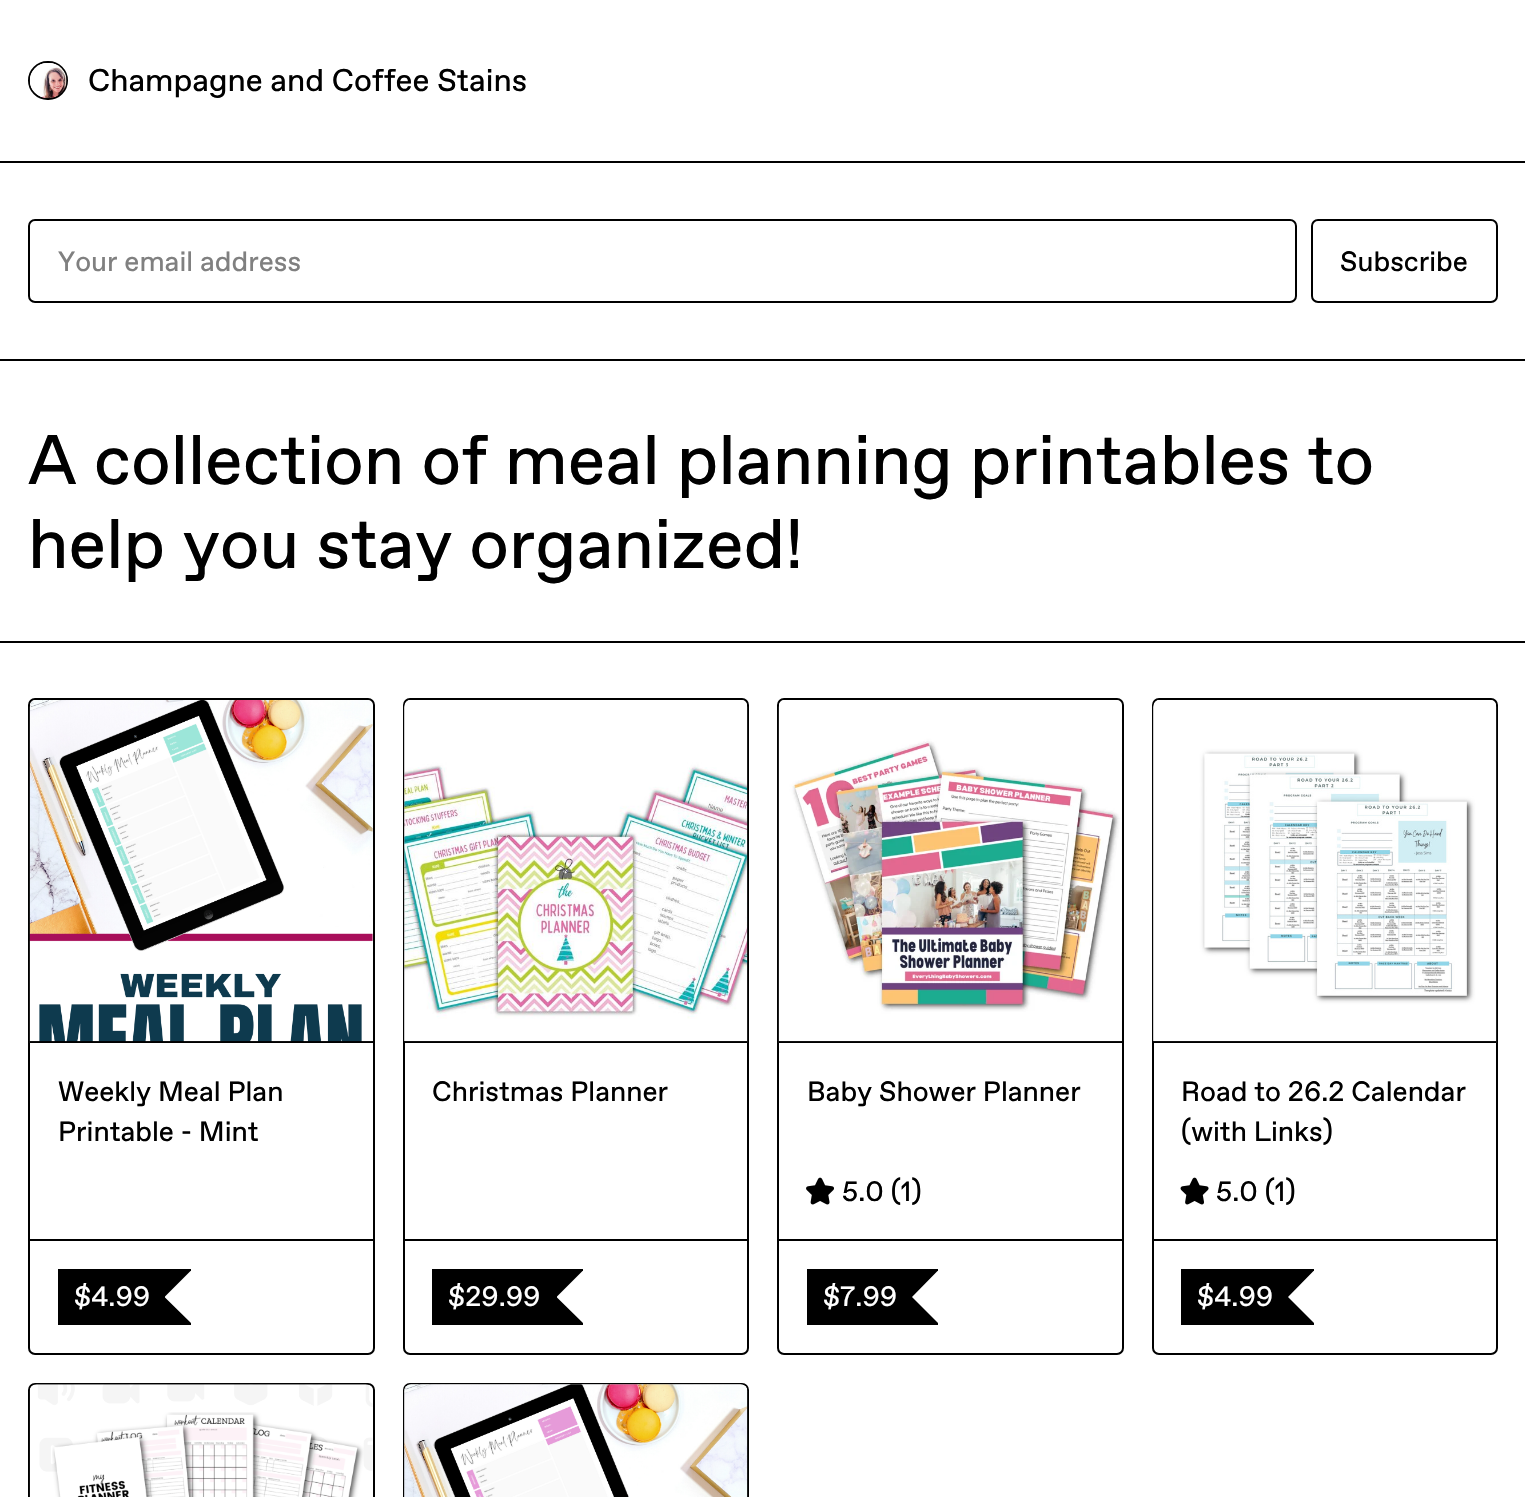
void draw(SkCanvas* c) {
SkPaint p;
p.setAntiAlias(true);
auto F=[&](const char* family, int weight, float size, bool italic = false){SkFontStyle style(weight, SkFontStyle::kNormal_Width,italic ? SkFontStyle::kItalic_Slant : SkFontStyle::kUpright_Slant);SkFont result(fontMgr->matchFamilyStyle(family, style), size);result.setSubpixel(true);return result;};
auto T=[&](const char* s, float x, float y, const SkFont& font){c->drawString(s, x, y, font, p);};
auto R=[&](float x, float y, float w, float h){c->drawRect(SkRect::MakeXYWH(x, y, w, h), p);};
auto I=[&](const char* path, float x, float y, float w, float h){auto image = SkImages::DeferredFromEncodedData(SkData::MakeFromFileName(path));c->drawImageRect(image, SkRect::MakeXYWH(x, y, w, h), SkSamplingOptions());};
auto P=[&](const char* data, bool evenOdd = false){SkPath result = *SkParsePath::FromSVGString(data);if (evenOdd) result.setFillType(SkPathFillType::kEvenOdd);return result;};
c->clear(0xffffffff);
p.setColor(0xff000000);
R(0,161,1525,2);
p.setStroke(true);
p.setStrokeWidth(2);
c->drawRoundRect(SkRect::MakeXYWH(29,62,38,37),18.5,18.5,p);
I("1.png",29,63,38,35);
auto f1 = F("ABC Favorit",400,31.5);
p.setStroke(false);
T("Champagne and Coffee Stains",88,91,f1);
R(0,359,1525,2);
p.setStroke(true);
c->drawRoundRect(SkRect::MakeXYWH(29,220,1267,82),6,6,p);
auto f2 = F("ABC Favorit",400,28);
p.setStroke(false);
p.setColor(0xff808080);
T("Your email address",58,271,f2);
p.setStroke(true);
p.setColor(0xff000000);
c->drawRoundRect(SkRect::MakeXYWH(1312,220,185,82),6,6,p);
p.setStroke(false);
T("Subscribe",1340,271,f2);
R(0,641,1525,2);
auto f3 = F("ABC Favorit",400,70);
T("A collection of meal planning printables to",28,484,f3);
T("help you stay organized!",28,568,f3);
p.setStroke(true);
c->drawRoundRect(SkRect::MakeXYWH(29,699,345,655),6,6,p);
I("2.png",29,700,344,343);
p.setStroke(false);
R(30,1041,343,2);
I("3.png",29,700,344,342);
R(30,1239,343,2);
T("Weekly Meal Plan",58,1101,f2);
T("Printable - Mint",58,1141,f2);
R(58,1269,133,2);
R(58,1323,133,2);
R(58,1269,2,56);
R(60,1271,103,52);
p.setColor(0xffffffff);
T("$4.99",74,1306,f2);
p.setColor(0xff000000);
c->drawPath(P("M163 1270.5h28l-26.5 26.5zm28 52.5h-28l1.5-26z"),p);
R(163,1271,2,52);
p.setStroke(true);
c->drawRoundRect(SkRect::MakeXYWH(404,699,344,655),6,6,p);
I("4.png",404,700,344,343);
p.setStroke(false);
R(404,1041,343,2);
I("5.png",404,700,344,342);
R(404,1239,343,2);
T("Christmas Planner",432,1101,f2);
R(432,1269,151,2);
R(432,1323,151,2);
R(432,1269,2,56);
R(434,1271,121,52);
p.setColor(0xffffffff);
T("$29.99",448,1306,f2);
p.setColor(0xff000000);
c->drawPath(P("M555 1270.5h28l-26.5 26.5zm28 52.5h-28l1.5-26z"),p);
R(555,1271,2,52);
p.setStroke(true);
c->drawRoundRect(SkRect::MakeXYWH(778,699,345,655),6,6,p);
I("2.png",778,700,344,343);
p.setStroke(false);
R(779,1041,343,2);
I("6.png",778,700,344,342);
R(779,1239,343,2);
T("Baby Shower Planner",807,1101,f2);
I("7.png",806,1177,28,28);
T("5.0 (1)",842,1201,f2);
R(807,1269,131,2);
R(807,1323,131,2);
R(807,1269,2,56);
R(809,1271,101,52);
p.setColor(0xffffffff);
T("$7.99",823,1306,f2);
p.setColor(0xff000000);
c->drawPath(P("M910 1270.5h28l-26 26.5zm28 52.5h-28l2-26z"),p);
R(910,1271,2,52);
p.setStroke(true);
c->drawRoundRect(SkRect::MakeXYWH(1153,699,344,655),6,6,p);
I("4.png",1153,700,344,343);
p.setStroke(false);
R(1153,1041,343,2);
I("8.png",1153,700,344,342);
R(1153,1239,343,2);
T("Road to 26.2 Calendar",1181,1101,f2);
T("(with Links)",1181,1141,f2);
I("9.png",1180,1177,29,28);
T("5.0 (1)",1216,1201,f2);
R(1181,1269,133,2);
R(1181,1323,133,2);
R(1181,1269,2,56);
R(1183,1271,103,52);
p.setColor(0xffffffff);
T("$4.99",1197,1306,f2);
p.setColor(0xff000000);
c->drawPath(P("M1286 1270.5h28l-26 26.5zm28 52.5h-28l2-26z"),p);
R(1286,1271,2,52);
p.setStroke(true);
c->drawRoundRect(SkRect::MakeXYWH(29,1384,345,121),6,6,p);
I("10.png",29,1384,344,113);
I("11.png",52,1412,312,85);
c->drawRoundRect(SkRect::MakeXYWH(404,1384,344,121),6,6,p);
I("12.png",404,1384,344,113);
I("13.png",404,1384,344,113);
}
